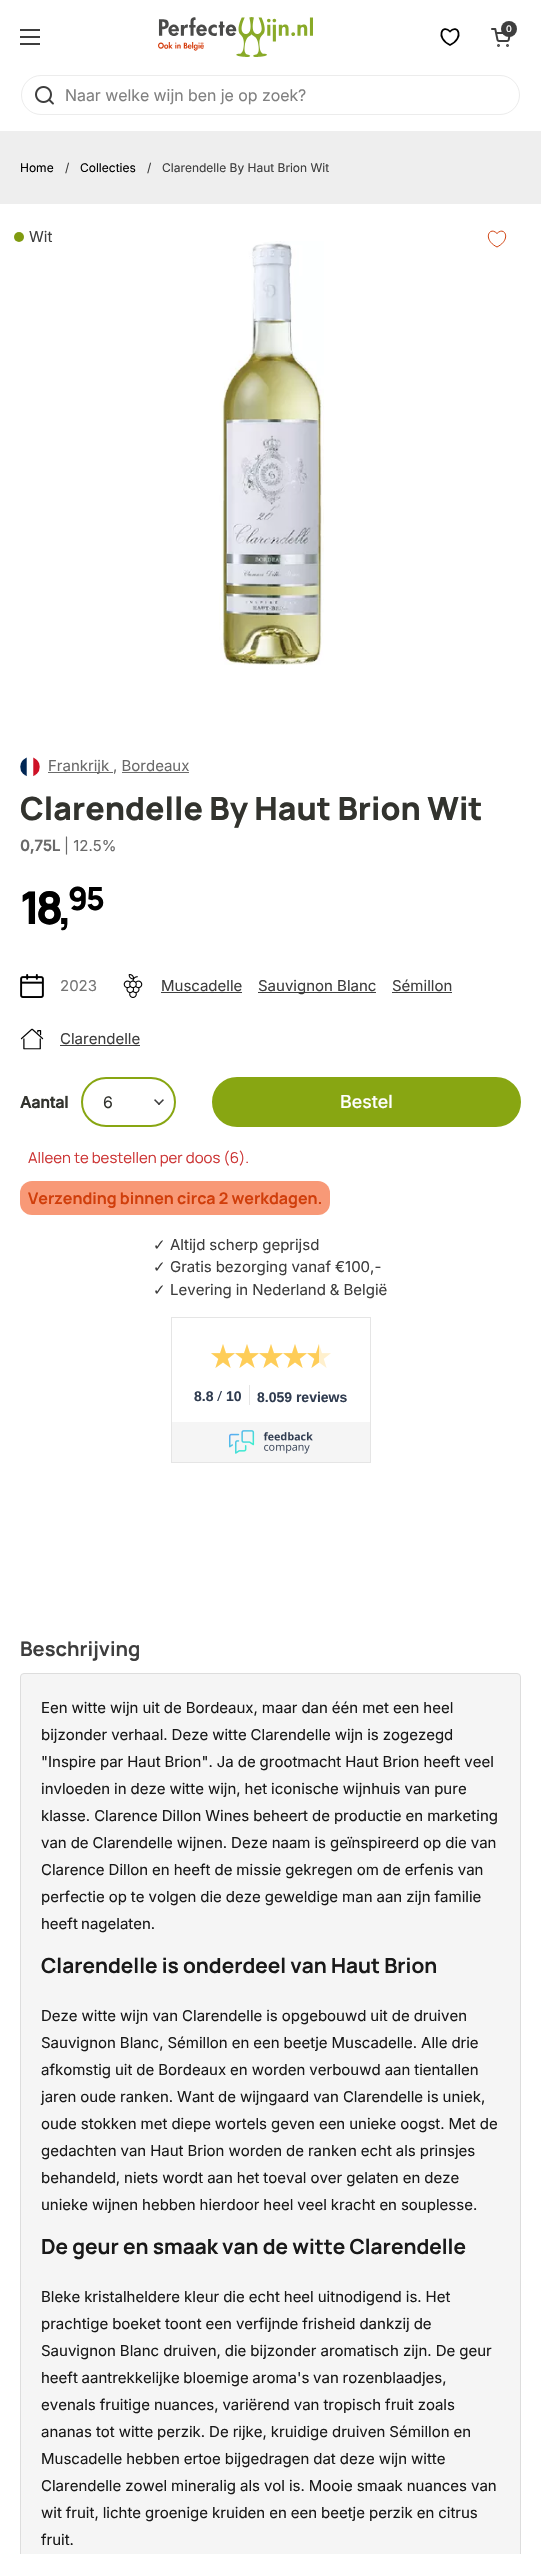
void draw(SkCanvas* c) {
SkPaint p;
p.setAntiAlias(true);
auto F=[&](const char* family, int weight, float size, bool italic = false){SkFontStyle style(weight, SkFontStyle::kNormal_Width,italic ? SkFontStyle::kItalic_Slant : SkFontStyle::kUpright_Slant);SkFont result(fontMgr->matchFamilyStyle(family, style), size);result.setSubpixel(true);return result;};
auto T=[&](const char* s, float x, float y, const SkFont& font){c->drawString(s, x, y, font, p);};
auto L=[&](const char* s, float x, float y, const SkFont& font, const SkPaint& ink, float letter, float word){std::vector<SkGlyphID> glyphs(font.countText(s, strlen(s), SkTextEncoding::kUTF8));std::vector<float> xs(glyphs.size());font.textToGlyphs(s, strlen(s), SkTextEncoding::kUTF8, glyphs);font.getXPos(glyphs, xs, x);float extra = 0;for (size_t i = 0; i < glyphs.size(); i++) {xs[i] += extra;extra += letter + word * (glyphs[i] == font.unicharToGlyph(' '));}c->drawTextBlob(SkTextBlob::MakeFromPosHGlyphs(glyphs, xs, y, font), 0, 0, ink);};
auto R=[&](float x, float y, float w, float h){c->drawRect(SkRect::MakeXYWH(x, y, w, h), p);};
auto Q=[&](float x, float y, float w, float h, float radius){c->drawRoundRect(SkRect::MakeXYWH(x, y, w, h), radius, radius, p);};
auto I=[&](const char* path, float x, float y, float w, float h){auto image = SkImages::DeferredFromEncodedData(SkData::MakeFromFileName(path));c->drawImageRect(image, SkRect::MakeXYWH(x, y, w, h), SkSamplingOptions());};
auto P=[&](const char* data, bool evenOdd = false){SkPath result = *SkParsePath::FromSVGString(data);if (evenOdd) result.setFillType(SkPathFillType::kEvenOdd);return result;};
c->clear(0xffeeeeee);
p.setColor(0xffffffff);
R(0,0,541,131);
p.setColor(0xff3e3e3e);
R(20,29,20,2);
R(20,36,20,2);
R(20,43,20,2);
I("1.png",158,17,155,40);
p.setStroke(true);
p.setStrokeWidth(1.8);
p.setColor(0xff000000);
c->drawPath(P("M450 45c-15-7.5-7.5-21.5 0-13.5c7.5-8 15 6 0 13.5z"),p);
I("2.png",491,28,20,19);
p.setStroke(false);
p.setColor(0xff3e3e3e);
c->drawCircle(509,29,8,p);
auto f1 = F("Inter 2",500,9);
p.setColor(0xffffffff);
T("0",506,32,f1);
p.setStroke(true);
p.setStrokeWidth(1);
p.setColor(0xffececec);
c->drawRoundRect(SkRect::MakeXYWH(21.5,75.5,498,39),19.5,19.5,p);
I("3.png",35,86,19,19);
auto f2 = F("Inter 2",400,16);
p.setStroke(false);
p.setColor(0xff808080);
T("Naar welke wijn ben je op zoek?",65,101,f2);
auto f3 = F("Inter",400,12);
p.setColor(0xff000000);
T("Home",20,172,f3);
p.setColor(0xff3e3e3e);
T("/",65,172,f3);
p.setColor(0xff000000);
T("Collecties",80,172,f3);
p.setColor(0xff3e3e3e);
T("/",147,172,f3);
T("Clarendelle By Haut Brion Wit",162,172,f3);
p.setColor(0xffffffff);
R(0,204,541,2350);
p.setColor(0xff809b10);
c->drawCircle(19,237,5,p);
auto f4 = F("Inter",400,15);
p.setColor(0xff3e3e3e);
T("Wit",29,242,f4);
p.setStroke(true);
p.setColor(0xffd03e0b);
c->drawPath(P("M497 247c-15-7.5-7.5-21.5 0-13.5c7.5-8 15 6 0 13.5z"),p);
I("4.png",219,241,105,424);
I("5.png",20,757,20,20);
p.setStroke(false);
p.setColor(0xff6a6a6a);
R(48,772,65,1);
T("Frankrijk",48,771,f4);
T(", Bordeaux",113,771,f4);
R(122,772,67,1);
auto f5 = F("Manrope",800,32);
p.setColor(0xff32332e);
T("Clarendelle By Haut Brion Wit",20,820,f5);
auto f6 = F("Inter",700,15);
p.setColor(0xff6a6a6a);
T("0,75L",20,851,f6);
T("| 12.5%",64,851,f4);
auto f7 = F("Manrope",800,45);
p.setColor(0xff000000);
L("18,",20,924,f7,p,-5,0);
L("9",68,910,f5,p,-5,0);
L("5",86,910,f5,p,-5,0);
I("6.png",20,974,24,24);
p.setColor(0xff757575);
T("2023",60,991,f4);
I("7.png",123,974,20,24);
p.setColor(0xff3e3e3e);
T("Muscadelle",161,991,f4);
R(161,992,81,1);
R(258,992,118,1);
T("Sauvignon Blanc",258,991,f4);
T("Sémillon",392,991,f4);
R(392,992,60,1);
I("8.png",20,1028,24,22);
T("Clarendelle",60,1044,f4);
R(60,1045,80,1);
auto f8 = F("Inter 2",700,16);
p.setColor(0xff32332e);
T("Aantal",20,1108,f8);
I("9.png",154,1099,10,6);
p.setStroke(true);
p.setStrokeWidth(2);
p.setColor(0xff88a612);
c->drawRoundRect(SkRect::MakeXYWH(82,1078,93,48),24,24,p);
p.setStroke(false);
p.setColor(0xff32332e);
T("6",103,1108,f2);
p.setColor(0xff88a612);
c->drawRoundRect(SkRect::MakeXYWH(213,1078,307,48),24,24,p);
p.setStroke(true);
c->drawRoundRect(SkRect::MakeXYWH(213,1078,307,48),24,24,p);
auto f9 = F("Inter",500,18);
p.setStroke(false);
p.setColor(0xffffffff);
T("Bestel",340,1108,f9);
auto f10 = F("Manrope",400,15);
p.setColor(0xffcc3333);
T("Alleen te bestellen per doos (6).",28,1163,f10);
p.setColor(0xfff89977);
Q(20,1181,310,34,12);
auto f11 = F("Manrope",700,16);
p.setColor(0xffd03e0b);
T("Verzending binnen circa 2 werkdagen.",28,1204,f11);
auto f12 = F("DejaVu Sans",400,15);
p.setColor(0xff3e3e3e);
T("✓",153,1250,f12);
L("Altijd scherp geprijsd",170,1250,f4,p,0,-.25);
T("✓",153,1272,f12);
L("Gratis bezorging vanaf €100,-",170,1272,f4,p,0,-.25);
T("✓",153,1295,f12);
L("Levering in Nederland & België",170,1295,f4,p,0,-.25);
p.setStroke(true);
p.setStrokeWidth(1);
p.setColor(0xffe5e5e5);
c->drawRect(SkRect::MakeXYWH(171.5,1317.5,199,145),p);
I("10.png",211,1344,24,24);
I("11.png",211,1344,24,24);
I("10.png",235,1344,24,24);
I("11.png",235,1344,24,24);
I("10.png",259,1344,24,24);
I("11.png",259,1344,24,24);
I("10.png",283,1344,24,24);
I("11.png",283,1344,24,24);
I("10.png",307,1344,24,24);
I("12.png",307,1344,12,24);
auto f13 = F("Liberation Sans",700,14);
p.setStroke(false);
p.setColor(0xff303c50);
T("8.8",194,1401,f13);
auto f14 = F("Open Sans",400,14);
T("/",217,1401,f14);
T("10",226,1401,f13);
p.setColor(0xffe5e5e5);
R(249,1385,1,20);
p.setColor(0xff303c50);
T("8.059 reviews",257,1402,f13);
p.setColor(0xfff5f5f5);
R(172,1422,198,40);
I("13.png",229,1430,84,24);
auto f15 = F("Manrope",700,20);
p.setColor(0xff3e3e3e);
T("Beschrijving",20,1656,f15);
p.setColor(0xfff5f5f5);
c->drawRoundRect(SkRect::MakeXYWH(20.5,1673.5,500,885),3.5,3.5,p);
p.setStroke(true);
p.setColor(0xffdddddd);
c->drawRoundRect(SkRect::MakeXYWH(20.5,1673.5,500,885),3.5,3.5,p);
p.setStroke(false);
p.setColor(0xff191919);
L("Een witte wijn uit de Bordeaux, maar dan één met een heel",41,1713,f4,p,0,-.25);
L("bijzonder verhaal. Deze witte Clarendelle wijn is zogezegd",41,1740,f4,p,0,-.25);
L("\"Inspire par Haut Brion\". Ja de grootmacht Haut Brion heeft veel",41,1767,f4,p,0,-.25);
L("invloeden in deze witte wijn, het iconische wijnhuis van pure",41,1794,f4,p,0,-.25);
L("klasse. Clarence Dillon Wines beheert de productie en marketing",41,1821,f4,p,0,-.25);
L("van de Clarendelle wijnen. Deze naam is geïnspireerd op die van",41,1848,f4,p,0,-.25);
L("Clarence Dillon en heeft de missie gekregen om de erfenis van",41,1875,f4,p,0,-.25);
L("perfectie op te volgen die deze geweldige man aan zijn familie",41,1902,f4,p,0,-.25);
L("heeft nagelaten.",41,1929,f4,p,0,-1);
auto f16 = F("Manrope",700,20.8);
T("Clarendelle is onderdeel van Haut Brion",41,1973,f16);
L("Deze witte wijn van Clarendelle is opgebouwd uit de druiven",41,2021,f4,p,0,-.25);
L("Sauvignon Blanc, Sémillon en een beetje Muscadelle. Alle drie",41,2048,f4,p,0,-.25);
L("afkomstig uit de Bordeaux en worden verbouwd aan tientallen",41,2075,f4,p,0,-.25);
L("jaren oude ranken. Want de wijngaard van Clarendelle is uniek,",41,2102,f4,p,0,-.25);
L("oude stokken met diepe wortels geven een unieke oogst. Met de",41,2129,f4,p,0,-.25);
L("gedachten van Haut Brion worden de ranken echt als prinsjes",41,2156,f4,p,0,-.25);
L("behandeld, niets wordt aan het toeval over gelaten en deze",41,2183,f4,p,0,-.25);
L("unieke wijnen hebben hierdoor heel veel kracht en souplesse.",41,2210,f4,p,0,-.25);
T("De geur en smaak van de witte Clarendelle",41,2254,f16);
L("Bleke kristalheldere kleur die echt heel uitnodigend is. Het",41,2302,f4,p,0,-.25);
L("prachtige boeket toont een verfijnde frisheid dankzij de",41,2329,f4,p,0,-.25);
L("Sauvignon Blanc druiven, die bijzonder aromatisch zijn. De geur",41,2356,f4,p,0,-.25);
L("heeft aantrekkelijke bloemige aroma's van rozenblaadjes,",41,2383,f4,p,0,-.5);
L("evenals fruitige nuances, variërend van tropisch fruit zoals",41,2410,f4,p,0,-.25);
L("ananas tot witte perzik. De rijke, kruidige druiven Sémillon en",41,2437,f4,p,0,-.25);
L("Muscadelle hebben ertoe bijgedragen dat deze wijn witte",41,2464,f4,p,0,-.25);
L("Clarendelle zowel mineralig als vol is. Mooie smaak nuances van",41,2491,f4,p,0,-.25);
L("wit fruit, lichte groenige kruiden en een beetje perzik en citrus",41,2518,f4,p,0,-.25);
T("fruit.",41,2545,f4);
}
